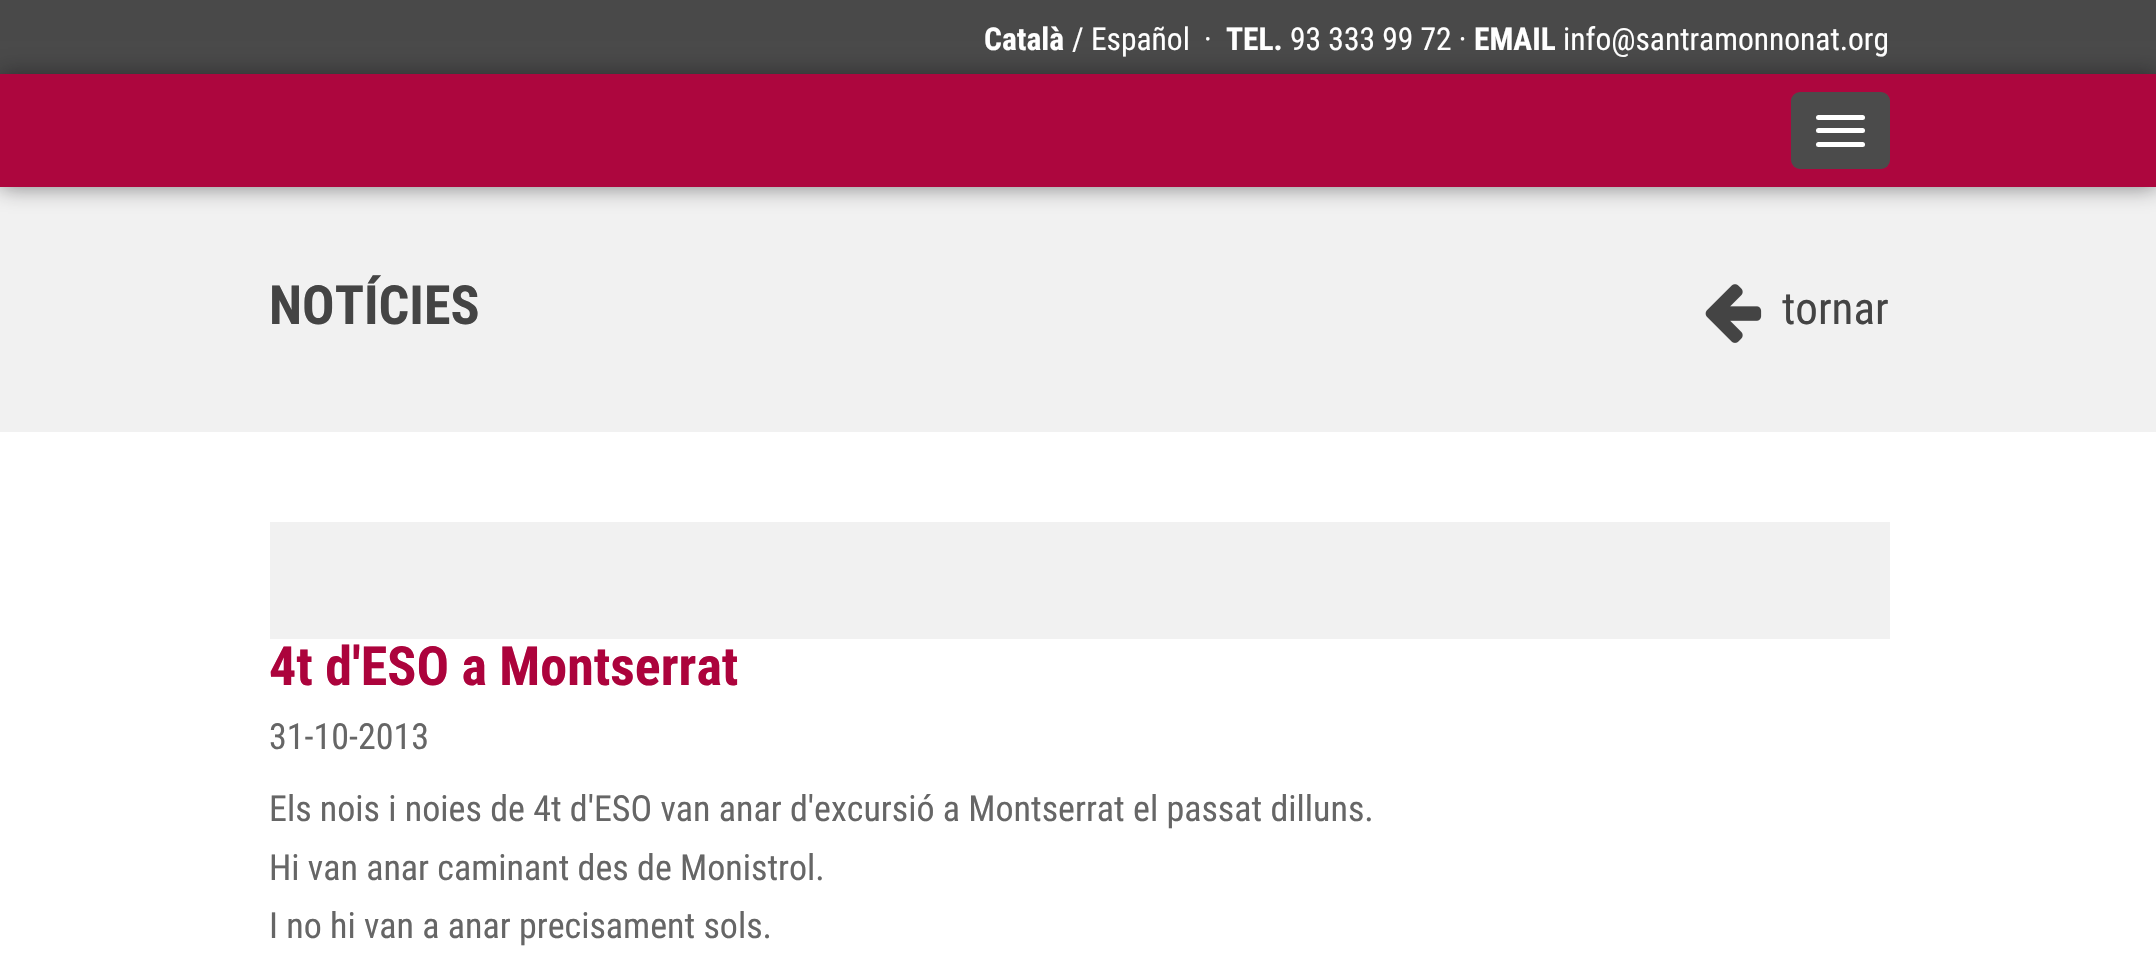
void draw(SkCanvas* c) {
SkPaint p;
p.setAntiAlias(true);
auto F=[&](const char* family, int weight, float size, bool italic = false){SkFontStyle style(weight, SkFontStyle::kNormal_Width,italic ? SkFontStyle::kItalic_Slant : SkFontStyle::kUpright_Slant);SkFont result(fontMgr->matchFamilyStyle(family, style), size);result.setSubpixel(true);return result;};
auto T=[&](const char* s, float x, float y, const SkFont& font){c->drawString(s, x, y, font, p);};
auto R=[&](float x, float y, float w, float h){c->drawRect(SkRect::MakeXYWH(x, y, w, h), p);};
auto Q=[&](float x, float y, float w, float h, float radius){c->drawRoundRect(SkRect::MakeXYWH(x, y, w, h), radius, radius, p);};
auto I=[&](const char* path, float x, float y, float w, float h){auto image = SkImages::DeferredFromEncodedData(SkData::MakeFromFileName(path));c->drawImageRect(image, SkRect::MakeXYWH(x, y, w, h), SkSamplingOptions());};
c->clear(0xffffffff);
p.setColor(0xff494949);
R(0,0,2156,74);
auto f1 = F("Roboto Condensed",700,31.5);
p.setColor(0xffffffff);
T("Català",984,50,f1);
auto f2 = F("Roboto Condensed",400,31.5);
T("/ Español",1072,50,f2);
T("·",1204,50,f2);
T("TEL.",1226,50,f1);
T("93 333 99 72 ·",1290,50,f2);
T("EMAIL",1474,50,f1);
T("info@santramonnonat.org",1563,50,f2);
p.setColor(0xfff1f1f1);
R(0,187,2156,245);
p.setColor(0x85131215);
p.setMaskFilter(SkMaskFilter::MakeBlur(kNormal_SkBlurStyle, 11));
c->drawRect(SkRect::MakeXYWH(0,74,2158,113),p);
p.setMaskFilter(nullptr);
p.setColor(0xffad063e);
R(0,74,2156,113);
p.setColor(0xff4b4b4b);
Q(1791,92,99,77,9);
p.setColor(0xffffffff);
Q(1816,115,49,5,2.5);
Q(1816,128,49,5,2.5);
Q(1816,142,49,5,2.5);
auto f3 = F("Roboto Condensed",700,54);
p.setColor(0xff444444);
T("NOTÍCIES",269,324,f3);
I("1.png",1705,284,57,59);
auto f4 = F("Roboto Condensed",400,45);
T("tornar",1782,324,f4);
p.setColor(0xfff1f1f1);
R(270,522,1620,117);
p.setColor(0xffac033c);
T("4t d'ESO a Montserrat",269,685,f3);
auto f5 = F("Roboto Condensed",400,36);
p.setColor(0xff666666);
T("31-10-2013",269,749,f5);
T("Els nois i noies de 4t d'ESO van anar d'excursió a Montserrat el passat dilluns.",269,821,f5);
T("Hi van anar caminant des de Monistrol.",269,880,f5);
T("I no hi van a anar precisament sols.",269,938,f5);
}
